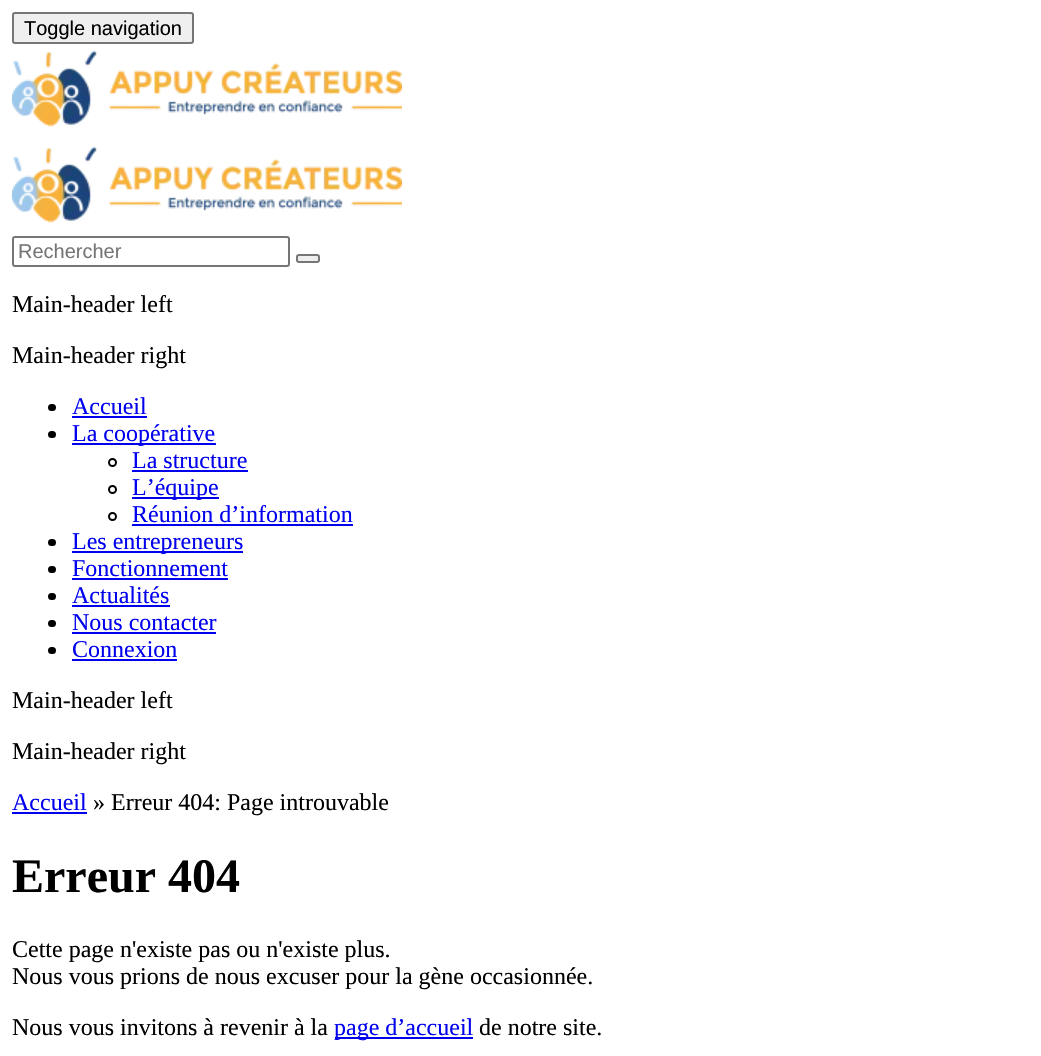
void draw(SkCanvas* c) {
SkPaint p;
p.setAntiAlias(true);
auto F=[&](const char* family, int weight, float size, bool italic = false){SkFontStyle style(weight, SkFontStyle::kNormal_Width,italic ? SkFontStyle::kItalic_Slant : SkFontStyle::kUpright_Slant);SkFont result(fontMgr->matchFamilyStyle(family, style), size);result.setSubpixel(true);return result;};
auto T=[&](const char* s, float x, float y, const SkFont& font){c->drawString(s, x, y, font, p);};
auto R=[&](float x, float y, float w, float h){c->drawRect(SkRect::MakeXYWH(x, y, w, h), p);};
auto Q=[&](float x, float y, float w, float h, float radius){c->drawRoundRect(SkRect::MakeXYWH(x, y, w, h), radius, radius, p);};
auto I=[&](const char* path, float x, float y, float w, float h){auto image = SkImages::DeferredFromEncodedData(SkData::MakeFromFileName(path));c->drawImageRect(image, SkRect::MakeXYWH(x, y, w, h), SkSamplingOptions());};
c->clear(0xffffffff);
p.setColor(0xffefefef);
c->drawRoundRect(SkRect::MakeXYWH(13,13,180,30),2,2,p);
p.setStroke(true);
p.setStrokeWidth(2);
p.setColor(0xff767676);
c->drawRoundRect(SkRect::MakeXYWH(13,13,180,30),2,2,p);
auto f1 = F("Liberation Sans",400,20);
p.setStroke(false);
p.setColor(0xff000000);
T("Toggle navigation",24,35,f1);
I("1.png",12,50,390,77);
I("1.png",12,146,390,77);
p.setStroke(true);
p.setColor(0xff767676);
c->drawRoundRect(SkRect::MakeXYWH(13,237,276,29),2,2,p);
p.setStroke(false);
p.setColor(0xff757575);
T("Rechercher",18,258,f1);
p.setColor(0xffefefef);
c->drawRoundRect(SkRect::MakeXYWH(297,255,22,7),2,2,p);
p.setStroke(true);
p.setColor(0xff767676);
c->drawRoundRect(SkRect::MakeXYWH(297,255,22,7),2,2,p);
auto f2 = F("Liberation Serif",400,24);
p.setStroke(false);
p.setColor(0xff000000);
T("Main-header left",12,312,f2);
T("Main-header right",12,363,f2);
Q(48,404,8,7,3.5);
p.setColor(0xff0000ee);
T("Accueil",72,414,f2);
R(72,416,75,2);
p.setColor(0xff000000);
Q(48,431,8,7,3.5);
p.setColor(0xff0000ee);
R(72,443,144,2);
T("La coopérative",72,441,f2);
p.setStroke(true);
p.setColor(0xff000000);
c->drawCircle(112.5,462.5,3.5,p);
p.setStroke(false);
p.setColor(0xff0000ee);
T("La structure",132,468,f2);
R(132,470,116,2);
p.setStroke(true);
p.setColor(0xff000000);
c->drawCircle(112.5,489.5,3.5,p);
p.setStroke(false);
p.setColor(0xff0000ee);
R(132,497,87,2);
T("L’équipe",132,495,f2);
p.setStroke(true);
p.setColor(0xff000000);
c->drawCircle(112.5,516.5,3.5,p);
p.setStroke(false);
p.setColor(0xff0000ee);
T("Réunion d’information",132,522,f2);
R(132,524,221,2);
p.setColor(0xff000000);
Q(48,539,8,7,3.5);
p.setColor(0xff0000ee);
R(72,551,171,2);
T("Les entrepreneurs",72,549,f2);
p.setColor(0xff000000);
Q(48,566,8,7,3.5);
p.setColor(0xff0000ee);
T("Fonctionnement",72,576,f2);
R(72,578,156,2);
p.setColor(0xff000000);
Q(48,593,8,7,3.5);
p.setColor(0xff0000ee);
T("Actualités",72,603,f2);
R(72,605,98,2);
p.setColor(0xff000000);
Q(48,620,8,7,3.5);
p.setColor(0xff0000ee);
T("Nous contacter",72,630,f2);
R(72,632,144,2);
p.setColor(0xff000000);
Q(48,647,8,7,3.5);
p.setColor(0xff0000ee);
T("Connexion",72,657,f2);
R(72,659,105,2);
p.setColor(0xff000000);
T("Main-header left",12,708,f2);
T("Main-header right",12,759,f2);
p.setColor(0xff0000ee);
T("Accueil",12,810,f2);
R(12,812,75,2);
p.setColor(0xff000000);
T("» Erreur 404: Page introuvable",93,810,f2);
auto f3 = F("Liberation Serif",700,48);
T("Erreur 404",12,892,f3);
T("Cette page n'existe pas ou n'existe plus.",12,957,f2);
T("Nous vous prions de nous excuser pour la gène occasionnée.",12,984,f2);
T("Nous vous invitons à revenir à la",12,1035,f2);
p.setColor(0xff0000ee);
R(335,1037,138,2);
T("page d’accueil",334,1035,f2);
p.setColor(0xff000000);
T("de notre site.",479,1035,f2);
}
